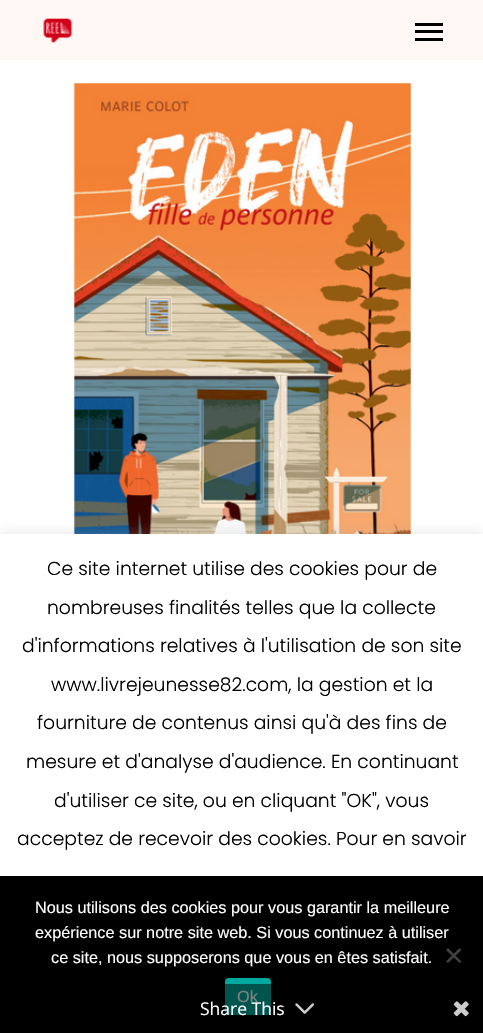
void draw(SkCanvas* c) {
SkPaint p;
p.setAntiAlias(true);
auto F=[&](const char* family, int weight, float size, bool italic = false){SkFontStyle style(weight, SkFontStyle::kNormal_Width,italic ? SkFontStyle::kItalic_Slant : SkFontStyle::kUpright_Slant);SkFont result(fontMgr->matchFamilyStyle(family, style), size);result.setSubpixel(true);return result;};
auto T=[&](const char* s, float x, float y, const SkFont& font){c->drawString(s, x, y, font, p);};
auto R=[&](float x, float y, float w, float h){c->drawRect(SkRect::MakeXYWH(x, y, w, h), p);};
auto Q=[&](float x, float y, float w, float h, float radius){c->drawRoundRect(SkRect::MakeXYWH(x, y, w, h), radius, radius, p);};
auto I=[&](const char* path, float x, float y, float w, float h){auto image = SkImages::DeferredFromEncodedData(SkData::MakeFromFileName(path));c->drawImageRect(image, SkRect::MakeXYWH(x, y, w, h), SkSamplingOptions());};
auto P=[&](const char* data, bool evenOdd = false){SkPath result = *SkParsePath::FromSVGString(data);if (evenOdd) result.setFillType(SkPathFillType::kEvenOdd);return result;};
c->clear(0xffffffff);
p.setColor(0xfffff7f4);
R(0,0,483,60);
I("1.png",43,18,30,25);
p.setColor(0xff000000);
R(415,23,28,3);
R(415,38,28,3);
R(415,30,28,3);
I("2.png",73,83,339,451);
p.setColor(0x4dacabab);
p.setMaskFilter(SkMaskFilter::MakeBlur(kNormal_SkBlurStyle, 6));
c->drawRect(SkRect::MakeXYWH(0,533,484,500),p);
p.setMaskFilter(nullptr);
p.setColor(0xffffffff);
R(0,534,483,342);
auto f1 = F("Poppins",300,18.75);
p.setColor(0xff000000);
T("Ce site internet utilise des cookies pour de",47,575,f1);
T("nombreuses finalités telles que la collecte",47,614,f1);
T("d'informations relatives à l'utilisation de son site",22,652,f1);
T("www.livrejeunesse82.com, la gestion et la",51,691,f1);
T("fourniture de contenus ainsi qu'à des fins de",37,729,f1);
T("mesure et d'analyse d'audience. En continuant",26,768,f1);
T("d'utiliser ce site, ou en cliquant \"OK\", vous",54,807,f1);
T("acceptez de recevoir des cookies. Pour en savoir",17,845,f1);
R(0,876,483,157);
auto f2 = F("Liberation Sans",400,16.25);
p.setColor(0xffffffff);
T("Nous utilisons des cookies pour vous garantir la meilleure",35,913,f2);
T("expérience sur notre site web. Si vous continuez à utiliser",35,938,f2);
T("ce site, nous supposerons que vous en êtes satisfait.",51,963,f2);
p.setColor(0xff404040);
c->drawPath(P("M459.5 948l2 2l-13.5 13l-2-1.5z"),p);
c->drawPath(P("M446 950l2-2l13.5 13.5l-2 1.5z"),p);
p.setColor(0xff00a99d);
Q(225,978,46,37,4);
p.setColor(0xffffffff);
T("Ok",237,1002,f2);
p.setColor(0x80000000);
R(225,984,46,31);
auto f3 = F("Open Sans",400,17.5);
p.setColor(0xffffffff);
T("Share This",200,1015,f3);
I("3.png",295,1003,19,11);
I("4.png",453,1001,16,16);
}
